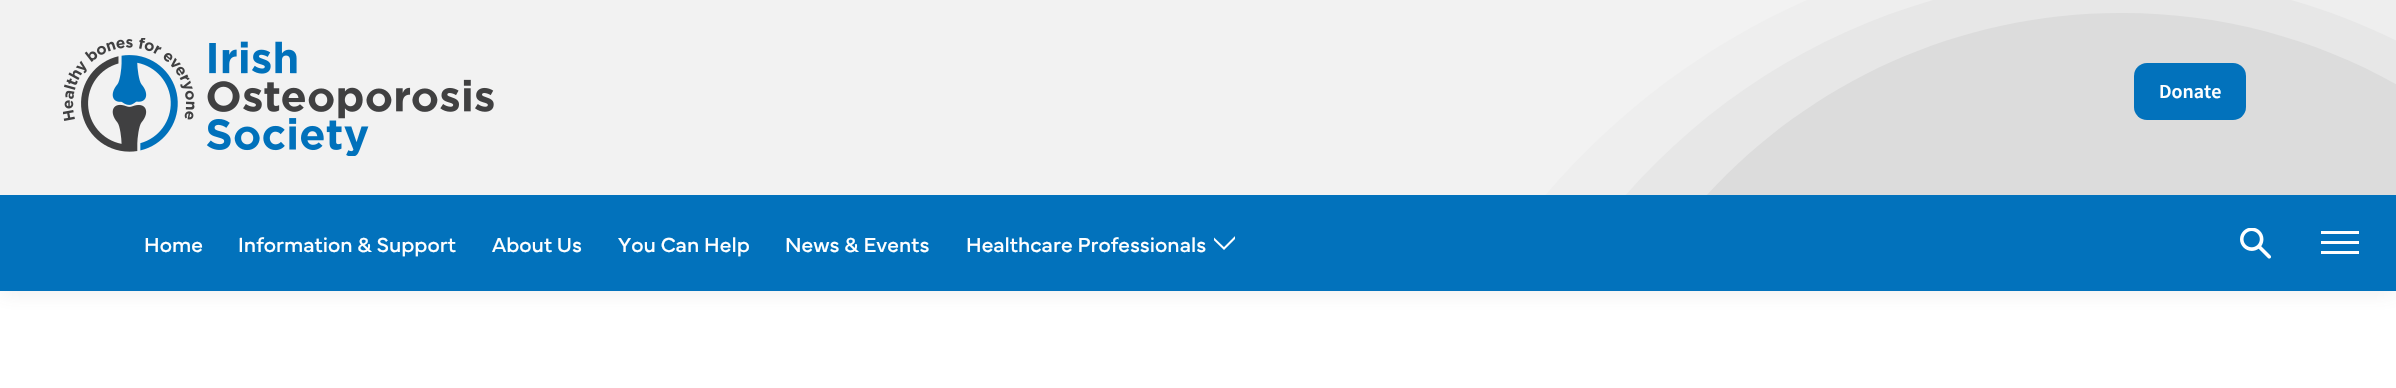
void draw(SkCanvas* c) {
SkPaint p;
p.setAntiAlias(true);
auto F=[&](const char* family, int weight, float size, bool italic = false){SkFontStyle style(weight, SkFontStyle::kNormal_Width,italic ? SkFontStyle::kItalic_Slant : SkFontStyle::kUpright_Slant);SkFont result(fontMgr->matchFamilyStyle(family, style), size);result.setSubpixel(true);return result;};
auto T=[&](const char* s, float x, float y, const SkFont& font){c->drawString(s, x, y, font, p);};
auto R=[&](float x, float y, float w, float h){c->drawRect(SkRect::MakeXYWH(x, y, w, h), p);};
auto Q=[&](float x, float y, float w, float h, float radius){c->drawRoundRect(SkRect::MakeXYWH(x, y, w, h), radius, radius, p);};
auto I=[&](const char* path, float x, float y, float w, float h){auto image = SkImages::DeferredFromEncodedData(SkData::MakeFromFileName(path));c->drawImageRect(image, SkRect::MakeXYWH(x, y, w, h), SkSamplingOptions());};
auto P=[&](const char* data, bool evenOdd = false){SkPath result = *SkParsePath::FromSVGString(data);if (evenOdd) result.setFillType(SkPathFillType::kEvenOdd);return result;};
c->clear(0xffffffff);
p.setColor(0x1c665757);
p.setMaskFilter(SkMaskFilter::MakeBlur(kNormal_SkBlurStyle, 9.5));
c->drawRect(SkRect::MakeXYWH(0,1,2396,292),p);
p.setMaskFilter(nullptr);
p.setColor(0xfff2f2f2);
R(0,0,1807,195);
I("1.png",63,38,431,118);
c->save();
c->clipRect(SkRect::MakeXYWH(0,0,2396,195));
p.setColor(0xffeeeeee);
c->drawPath(P("M2102-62h1c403.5 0 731 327.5 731 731v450h-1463v-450c0-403.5 327.5-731 731-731z"),p);
p.setColor(0xffe7e7e7);
c->drawPath(P("M2112-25c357.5 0 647 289.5 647 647v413h-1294v-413c0-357.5 289.5-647 647-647z"),p);
p.setColor(0xffdcdcdc);
c->drawPath(P("M2121 13h1c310.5 0 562 251.5 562 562h-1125c0-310.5 251.5-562 562-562z"),p);
c->restore();
p.setColor(0xff0272bc);
Q(2134,63,112,57,13);
auto f1 = F("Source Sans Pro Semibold",600,20);
p.setColor(0xffffffff);
T("Donate",2159,98,f1);
p.setColor(0xff0272bc);
R(0,195,2396,96);
auto f2 = F("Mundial",400,21.25);
p.setColor(0xffffffff);
T("Home",144,252,f2);
T("Information & Support",238,252,f2);
T("About Us",492,252,f2);
T("You Can Help",618,252,f2);
T("News & Events",785,252,f2);
T("Healthcare Professionals",966,252,f2);
c->save();
c->clipRect(SkRect::MakeXYWH(1214,236,21,14));
p.setStroke(true);
p.setStrokeWidth(2);
c->drawPath(P("M1235.5 237l-11.5 11.5l-12-11.5"),p);
c->restore();
I("2.png",2240,228,31,31);
p.setStroke(false);
R(2321,231,38,3);
R(2321,241,38,3);
R(2321,251,38,3);
}
